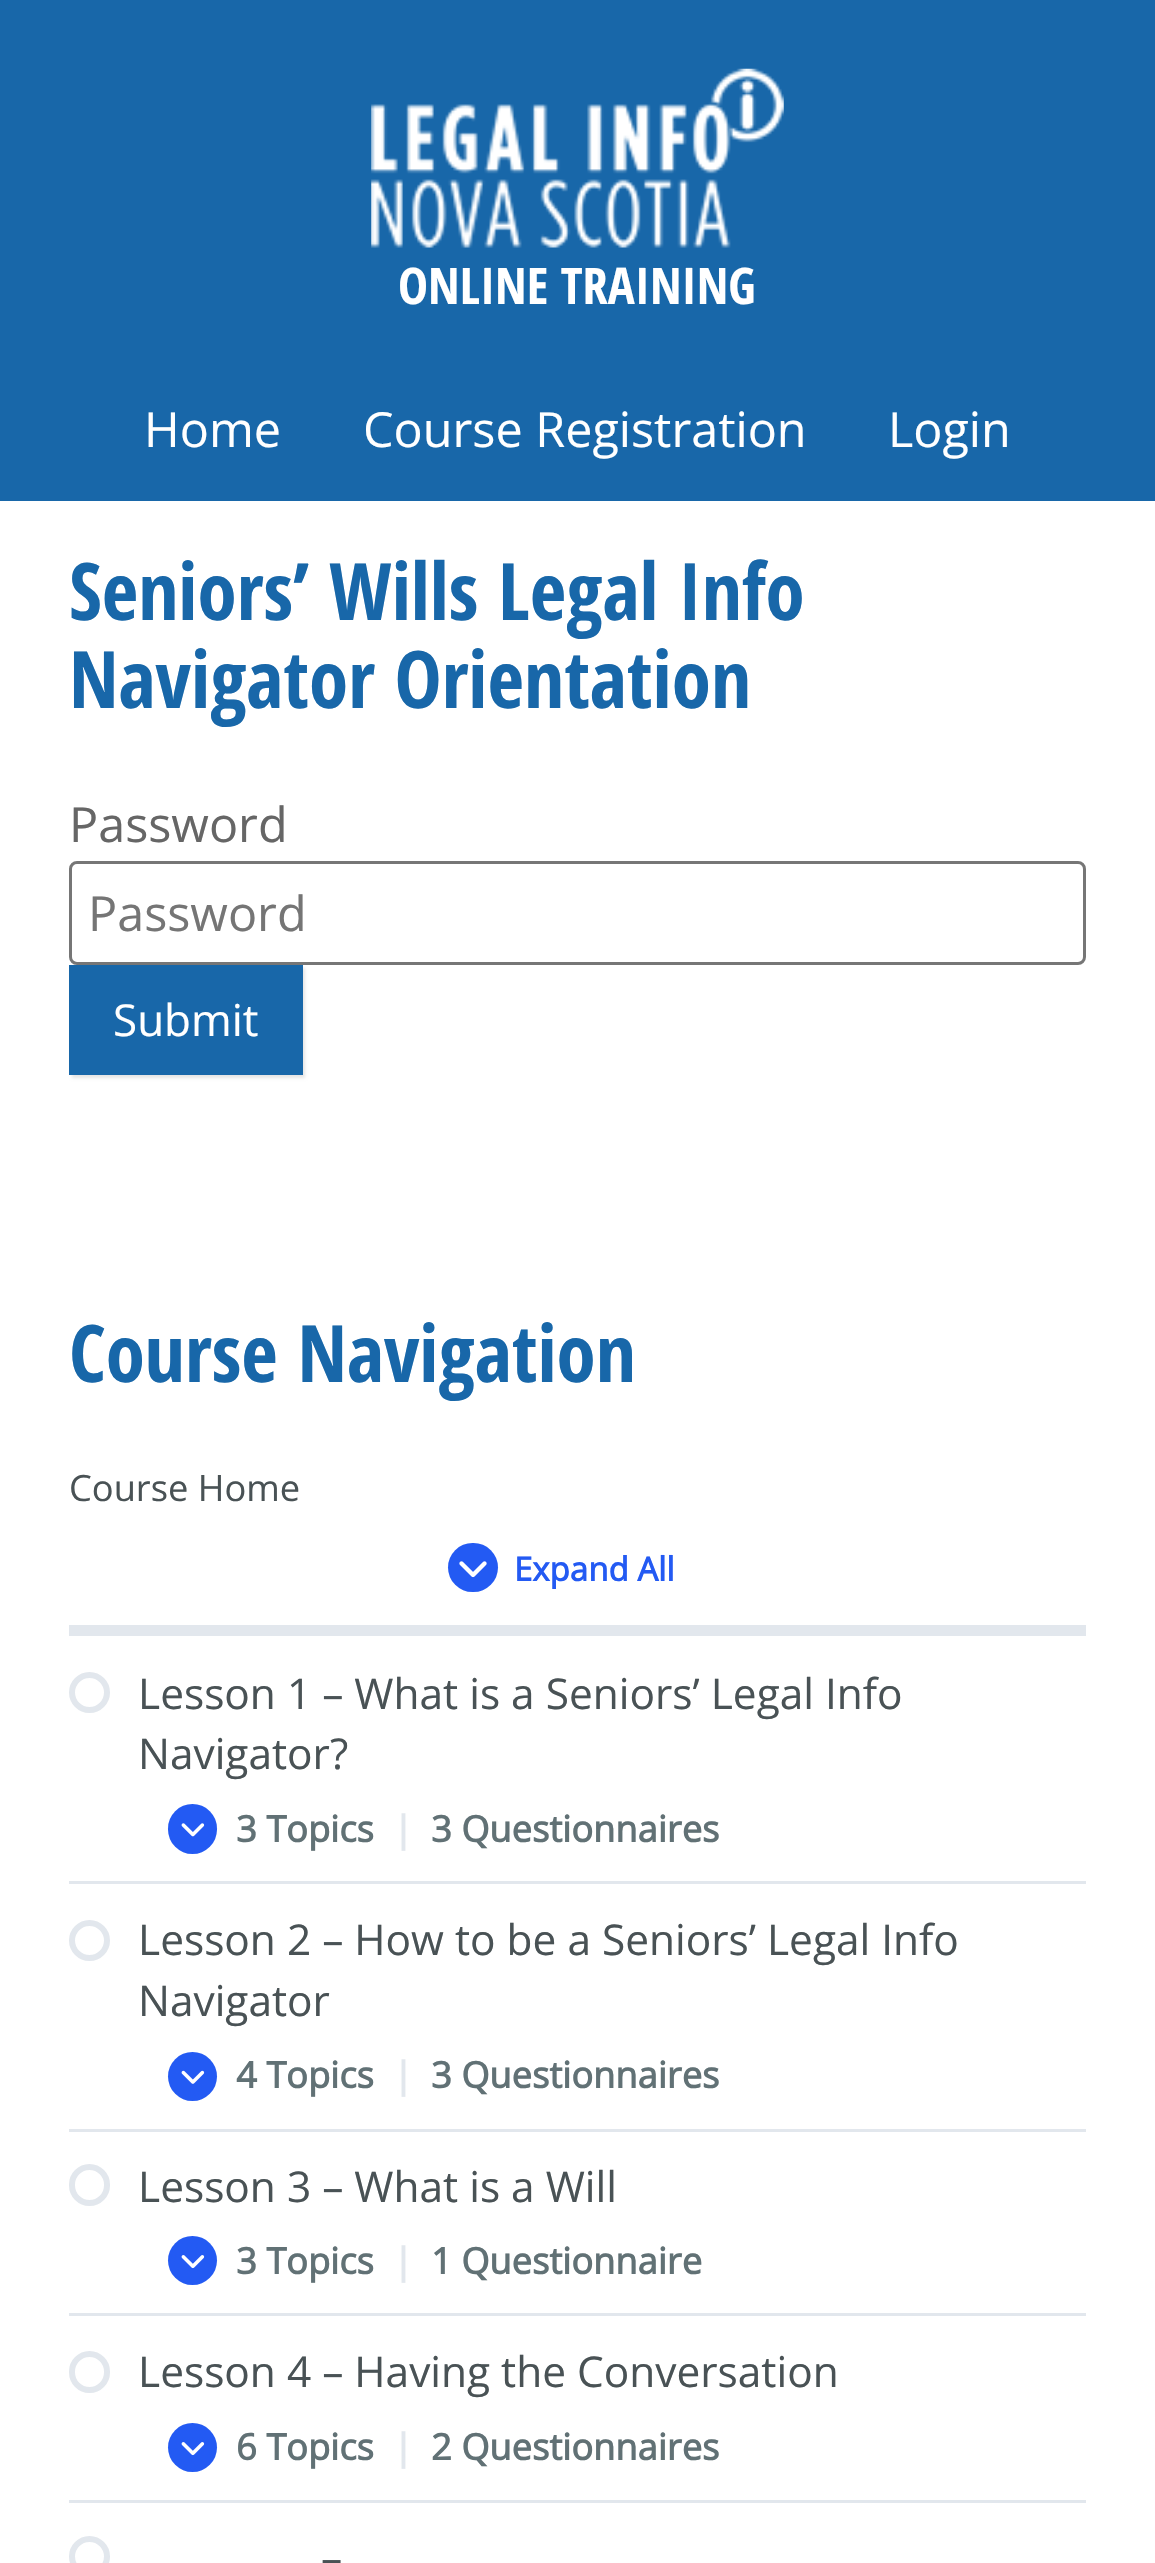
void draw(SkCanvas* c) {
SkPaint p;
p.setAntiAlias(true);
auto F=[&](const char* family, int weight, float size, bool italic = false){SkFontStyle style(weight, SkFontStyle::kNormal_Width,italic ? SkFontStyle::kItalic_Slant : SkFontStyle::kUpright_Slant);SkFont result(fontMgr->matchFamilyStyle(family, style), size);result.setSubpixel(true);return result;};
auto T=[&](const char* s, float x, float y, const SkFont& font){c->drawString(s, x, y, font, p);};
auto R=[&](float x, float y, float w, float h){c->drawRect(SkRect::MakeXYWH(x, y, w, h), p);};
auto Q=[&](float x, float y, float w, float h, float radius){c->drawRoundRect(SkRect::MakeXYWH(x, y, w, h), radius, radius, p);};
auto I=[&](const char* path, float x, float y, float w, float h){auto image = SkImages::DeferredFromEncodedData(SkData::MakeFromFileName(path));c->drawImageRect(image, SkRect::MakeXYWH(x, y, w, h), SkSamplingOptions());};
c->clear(0xffffffff);
p.setColor(0xff1867a9);
R(0,0,1155,501);
I("1.png",371,68,413,180);
auto f1 = F("Open Sans Condensed",700,50.5);
p.setColor(0xffffffff);
T("ONLINE TRAINING",398,304,f1);
auto f2 = F("Open Sans",400,48.5);
T("Home",144,447,f2);
T("Course Registration",363,447,f2);
T("Login",888,447,f2);
auto f3 = F("Open Sans Condensed",700,79.25);
p.setColor(0xff1867a9);
T("Seniors’ Wills Legal Info",69,620,f3);
T("Navigator Orientation",69,708,f3);
p.setColor(0xff666666);
T("Password",69,842,f2);
p.setStroke(true);
p.setStrokeWidth(3);
p.setColor(0xff767676);
c->drawRoundRect(SkRect::MakeXYWH(70.5,862.5,1014,101),6.5,6.5,p);
p.setStroke(false);
p.setColor(0xff757575);
T("Password",88,931,f2);
p.setColor(0x1a000000);
p.setMaskFilter(SkMaskFilter::MakeBlur(kNormal_SkBlurStyle, 1.5));
c->drawRect(SkRect::MakeXYWH(72,968,233,110),p);
p.setMaskFilter(nullptr);
p.setColor(0xff1867a9);
R(69,965,234,110);
auto f4 = F("Open Sans",400,44);
p.setColor(0xffffffff);
T("Submit",113,1036,f4);
p.setColor(0xff1867a9);
T("Course Navigation",69,1382,f3);
p.setColor(0xffe2e7ed);
R(69,1625,1017,11);
auto f5 = F("Open Sans",400,36.25);
p.setColor(0xff495255);
T("Course Home",69,1501,f5);
p.setColor(0xff235af3);
Q(448,1543,50,49,24.5);
I("2.png",459,1561,28,17);
auto f6 = F("Open Sans",700,33);
T("Expand All",514,1581,f6);
p.setColor(0xffe2e7ed);
R(69,1881,1017,3);
p.setStroke(true);
p.setStrokeWidth(6);
c->drawCircle(89.5,1692.5,17.5,p);
auto f7 = F("Open Sans",400,42.4);
p.setStroke(false);
p.setColor(0xff495255);
T("Lesson 1 – What is a Seniors’ Legal Info",138,1709,f7);
T("Navigator?",138,1769,f7);
p.setColor(0xff235af3);
Q(168,1804,49,50,24.5);
I("3.png",181,1823,24,14);
auto f8 = F("Open Sans",700,36.25);
p.setColor(0xff617175);
T("3 Topics",236,1842,f8);
p.setColor(0xffe2e7ed);
T("|",393,1842,f8);
p.setColor(0xff617175);
T("3 Questionnaires",431,1842,f8);
p.setColor(0xffe2e7ed);
R(69,2129,1017,3);
p.setStroke(true);
c->drawCircle(89.5,1940.5,17.5,p);
p.setStroke(false);
p.setColor(0xff495255);
T("Lesson 2 – How to be a Seniors’ Legal Info",138,1955,f7);
T("Navigator",138,2016,f7);
p.setColor(0xff235af3);
c->drawCircle(192.5,2076.5,24.5,p);
I("4.png",181,2070,24,14);
p.setColor(0xff617175);
T("4 Topics",236,2088,f8);
p.setColor(0xffe2e7ed);
T("|",393,2088,f8);
p.setColor(0xff617175);
T("3 Questionnaires",431,2088,f8);
p.setColor(0xffe2e7ed);
R(69,2313,1017,3);
p.setStroke(true);
c->drawRoundRect(SkRect::MakeXYWH(72,2167,35,36),17.5,17.5,p);
p.setStroke(false);
p.setColor(0xff495255);
T("Lesson 3 – What is a Will",138,2202,f7);
p.setColor(0xff235af3);
c->drawCircle(192.5,2260.5,24.5,p);
I("5.png",181,2255,24,14);
p.setColor(0xff617175);
T("3 Topics",236,2274,f8);
p.setColor(0xffe2e7ed);
T("|",393,2274,f8);
p.setColor(0xff617175);
T("1 Questionnaire",431,2274,f8);
p.setColor(0xffe2e7ed);
R(69,2500,1017,3);
p.setStroke(true);
c->drawRoundRect(SkRect::MakeXYWH(72,2354,35,36),17.5,17.5,p);
p.setStroke(false);
p.setColor(0xff495255);
T("Lesson 4 – Having the Conversation",138,2387,f7);
p.setColor(0xff235af3);
c->drawCircle(192.5,2447.5,24.5,p);
I("5.png",181,2442,24,14);
p.setColor(0xff617175);
T("6 Topics",236,2460,f8);
p.setColor(0xffe2e7ed);
T("|",393,2460,f8);
p.setColor(0xff617175);
T("2 Questionnaires",431,2460,f8);
p.setStroke(true);
p.setColor(0xffe2e7ed);
c->drawCircle(89.5,2556.5,17.5,p);
p.setStroke(false);
p.setColor(0xff495255);
T("–",321,2573,f7);
}
